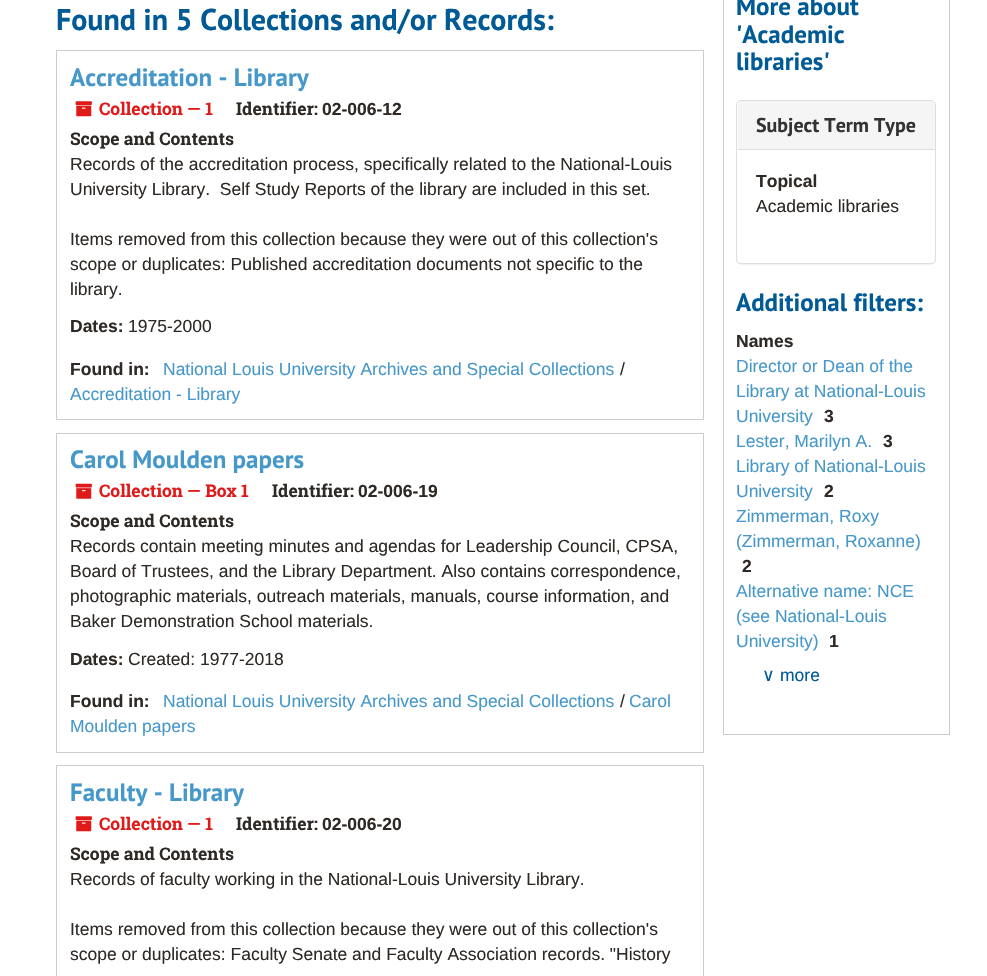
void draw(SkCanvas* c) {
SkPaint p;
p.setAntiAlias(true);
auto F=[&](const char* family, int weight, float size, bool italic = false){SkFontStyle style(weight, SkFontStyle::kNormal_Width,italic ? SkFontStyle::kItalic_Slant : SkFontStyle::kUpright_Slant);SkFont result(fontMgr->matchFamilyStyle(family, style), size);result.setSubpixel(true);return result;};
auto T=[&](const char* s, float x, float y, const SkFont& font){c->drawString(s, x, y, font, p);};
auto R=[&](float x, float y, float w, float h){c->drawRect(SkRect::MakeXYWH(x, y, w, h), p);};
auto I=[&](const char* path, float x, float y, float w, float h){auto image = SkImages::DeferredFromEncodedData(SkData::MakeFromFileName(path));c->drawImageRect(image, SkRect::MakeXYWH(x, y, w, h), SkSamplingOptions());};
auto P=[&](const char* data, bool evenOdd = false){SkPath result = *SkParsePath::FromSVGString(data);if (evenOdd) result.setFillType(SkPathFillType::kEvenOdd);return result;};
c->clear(0xffffffff);
auto f1 = F("PT Sans",700,30);
p.setColor(0xff005a96);
T("Found in 5 Collections and/or Records:",56,30,f1);
p.setStroke(true);
p.setStrokeWidth(1);
p.setColor(0xffcccccc);
c->drawRect(SkRect::MakeXYWH(56.5,50.5,647,369),p);
auto f2 = F("PT Sans",700,25);
p.setStroke(false);
p.setColor(0xff4698ca);
T("Accreditation - Library",70,86,f2);
I("1.png",75,101,17,16);
auto f3 = F("Roboto Slab",700,17.5);
p.setColor(0xffe01919);
T("Collection — 1",99,115,f3);
p.setColor(0xff2e2925);
T("Identifier:",236,115,f3);
auto f4 = F("Liberation Sans",700,17.5);
T("02-006-12",322,115,f4);
T("Scope and Contents",70,145,f3);
auto f5 = F("Liberation Sans",400,17.5);
T("Records of the accreditation process, specifically related to the National-Louis",70,170,f5);
T("University Library.  Self Study Reports of the library are included in this set.",70,195,f5);
T("Items removed from this collection because they were out of this collection's",70,245,f5);
T("scope or duplicates: Published accreditation documents not specific to the",70,270,f5);
T("library.",70,295,f5);
T("Dates:",70,332,f4);
T("1975-2000",128,332,f5);
T("Found in:",70,375,f4);
p.setColor(0xff4698ca);
T("National Louis University Archives and Special Collections",163,375,f5);
p.setColor(0xff2e2925);
T("/",620,375,f5);
p.setColor(0xff4698ca);
T("Accreditation - Library",70,400,f5);
p.setStroke(true);
p.setColor(0xffcccccc);
c->drawRect(SkRect::MakeXYWH(56.5,433.5,647,319),p);
p.setStroke(false);
p.setColor(0xff4698ca);
T("Carol Moulden papers",70,468,f2);
I("2.png",75,483,17,16);
p.setColor(0xffe01919);
T("Collection — Box 1",99,497,f3);
p.setColor(0xff2e2925);
T("Identifier:",272,497,f3);
T("02-006-19",358,497,f4);
T("Scope and Contents",70,527,f3);
T("Records contain meeting minutes and agendas for Leadership Council, CPSA,",70,552,f5);
T("Board of Trustees, and the Library Department. Also contains correspondence,",70,577,f5);
T("photographic materials, outreach materials, manuals, course information, and",70,602,f5);
T("Baker Demonstration School materials.",70,627,f5);
T("Dates:",70,665,f4);
T("Created: 1977-2018",128,665,f5);
T("Found in:",70,707,f4);
p.setColor(0xff4698ca);
T("National Louis University Archives and Special Collections",163,707,f5);
p.setColor(0xff2e2925);
T("/",620,707,f5);
p.setColor(0xff4698ca);
T("Carol",629,707,f5);
T("Moulden papers",70,732,f5);
p.setStroke(true);
p.setColor(0xffcccccc);
c->drawRect(SkRect::MakeXYWH(56.5,765.5,647,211),p);
p.setStroke(false);
p.setColor(0xff4698ca);
T("Faculty - Library",70,801,f2);
I("1.png",75,816,17,16);
p.setColor(0xffe01919);
T("Collection — 1",99,830,f3);
p.setColor(0xff2e2925);
T("Identifier:",236,830,f3);
T("02-006-20",322,830,f4);
T("Scope and Contents",70,860,f3);
T("Records of faculty working in the National-Louis University Library.",70,885,f5);
T("Items removed from this collection because they were out of this collection's",70,935,f5);
T("scope or duplicates: Faculty Senate and Faculty Association records. \"History",70,960,f5);
p.setStroke(true);
p.setColor(0xffcccccc);
c->drawRect(SkRect::MakeXYWH(723.5,-.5,226,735),p);
p.setStroke(false);
p.setColor(0xff005a96);
T("More about",736,15,f2);
T("'Academic",736,43,f2);
T("libraries'",736,70,f2);
p.setColor(0x0d000000);
p.setMaskFilter(SkMaskFilter::MakeBlur(kNormal_SkBlurStyle, .5));
c->drawRoundRect(SkRect::MakeXYWH(736,101,200,164),5,5,p);
p.setMaskFilter(nullptr);
p.setColor(0xffffffff);
c->drawRoundRect(SkRect::MakeXYWH(736.5,100.5,199,163),4.5,4.5,p);
p.setStroke(true);
p.setColor(0xffdddddd);
c->drawRoundRect(SkRect::MakeXYWH(736.5,100.5,199,163),4.5,4.5,p);
p.setStroke(false);
p.setColor(0xfff5f5f5);
c->drawPath(P("M742 101h189c2 0 4 2 4 4v44h-197v-44c0-2 2-4 4-4z"),p);
auto f6 = F("PT Sans",700,20);
p.setColor(0xff333333);
T("Subject Term Type",756,132,f6);
p.setColor(0xffdddddd);
R(738,149,197,1);
p.setColor(0xff2e2925);
T("Topical",756,187,f4);
T("Academic libraries",756,212,f5);
p.setColor(0xff005a96);
T("Additional filters:",736,311,f2);
p.setColor(0xff2e2925);
T("Names",736,347,f4);
p.setColor(0xff4698ca);
T("Director or Dean of the",736,372,f5);
T("Library at National-Louis",736,397,f5);
T("University",736,422,f5);
p.setColor(0xff2e2925);
T("3",824,422,f4);
p.setColor(0xff4698ca);
T("Lester, Marilyn A.",736,447,f5);
p.setColor(0xff2e2925);
T("3",883,447,f4);
p.setColor(0xff4698ca);
T("Library of National-Louis",736,472,f5);
T("University",736,497,f5);
p.setColor(0xff2e2925);
T("2",824,497,f4);
p.setColor(0xff4698ca);
T("Zimmerman, Roxy",736,522,f5);
T("(Zimmerman, Roxanne)",736,547,f5);
p.setColor(0xff2e2925);
T("2",742,572,f4);
p.setColor(0xff4698ca);
T("Alternative name: NCE",736,597,f5);
T("(see National-Louis",736,622,f5);
T("University)",736,647,f5);
p.setColor(0xff2e2925);
T("1",829,647,f4);
auto f7 = F("DejaVu Sans",400,17.5);
p.setColor(0xff005a96);
T("∨",762,681,f7);
T("more",780,681,f5);
}
